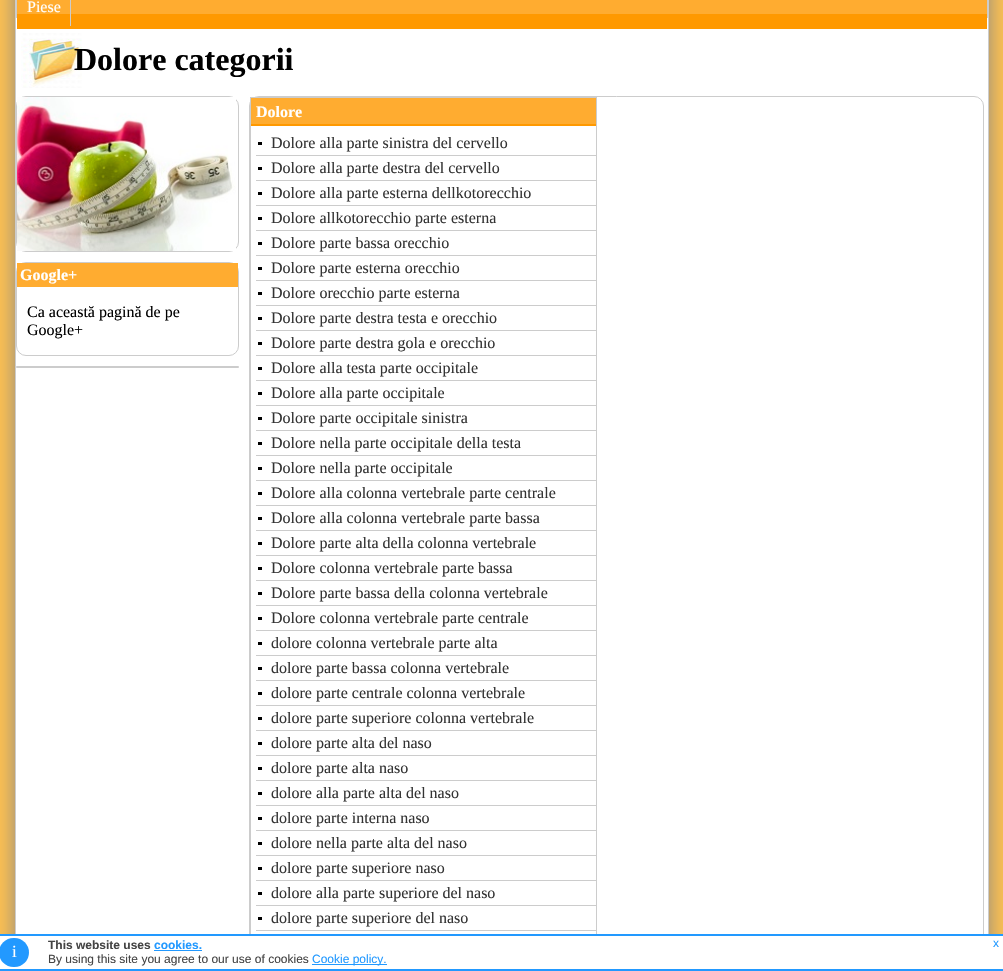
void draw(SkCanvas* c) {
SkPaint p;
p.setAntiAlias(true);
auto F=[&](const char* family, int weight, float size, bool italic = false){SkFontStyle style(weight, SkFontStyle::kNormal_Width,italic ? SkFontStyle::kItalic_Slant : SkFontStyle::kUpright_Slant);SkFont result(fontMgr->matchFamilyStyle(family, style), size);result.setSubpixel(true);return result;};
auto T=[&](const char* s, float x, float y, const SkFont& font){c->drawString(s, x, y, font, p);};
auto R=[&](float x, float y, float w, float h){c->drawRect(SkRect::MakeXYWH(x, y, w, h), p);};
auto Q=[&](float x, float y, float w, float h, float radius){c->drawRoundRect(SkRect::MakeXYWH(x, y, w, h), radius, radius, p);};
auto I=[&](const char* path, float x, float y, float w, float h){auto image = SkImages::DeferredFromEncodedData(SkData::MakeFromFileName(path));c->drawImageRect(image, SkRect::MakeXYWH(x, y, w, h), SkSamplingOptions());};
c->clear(0xffffc14f);
p.setColor(0xff888888);
p.setMaskFilter(SkMaskFilter::MakeBlur(kNormal_SkBlurStyle, 10));
c->drawRect(SkRect::MakeXYWH(15,-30,974,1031),p);
p.setMaskFilter(nullptr);
p.setColor(0xffffffff);
R(16,18,972,916);
p.setStroke(true);
p.setStrokeWidth(1);
p.setColor(0xffcccccc);
c->drawRect(SkRect::MakeXYWH(15.5,-.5,973,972),p);
p.setStroke(false);
R(987,0,1,18);
R(16,0,1,18);
I("1.png",17,0,970,29);
R(70,0,1,26);
auto f1 = F("Liberation Serif",400,16);
p.setColor(0xffffffff);
T("Piese",27,12,f1);
I("2.png",21,33,61,55);
auto f2 = F("Liberation Serif",700,32);
p.setColor(0xff000000);
T("Dolore categorii",74,70,f2);
p.setStroke(true);
p.setColor(0xffcccccc);
c->drawRoundRect(SkRect::MakeXYWH(16.5,96.5,222,155),9.5,9.5,p);
I("3.png",17,97,219,154);
c->drawRoundRect(SkRect::MakeXYWH(16.5,262.5,222,93),9.5,9.5,p);
p.setStroke(false);
p.setColor(0xffffac30);
R(17,263,221,24);
auto f3 = F("Liberation Serif",700,16);
p.setColor(0xffffffff);
T("Google+",20,280,f3);
p.setColor(0xff000000);
T("Ca această pagină de pe",27,317,f1);
T("Google+",27,335,f1);
p.setColor(0xffcccccc);
Q(16,366,223,2,1);
p.setStroke(true);
c->drawRoundRect(SkRect::MakeXYWH(249.5,96.5,734,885),9.5,9.5,p);
c->drawRect(SkRect::MakeXYWH(250.5,97.5,346,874),p);
I("4.png",251,98,345,28);
p.setStroke(false);
p.setColor(0xffffffff);
T("Dolore",256,117,f3);
p.setColor(0xff000000);
R(258,142,4,3);
p.setColor(0xffcccccc);
R(256,155,340,1);
p.setColor(0xff333333);
T("Dolore alla parte sinistra del cervello",271,148,f1);
p.setColor(0xff000000);
R(258,167,4,3);
p.setColor(0xffcccccc);
R(256,180,340,1);
p.setColor(0xff333333);
T("Dolore alla parte destra del cervello",271,173,f1);
p.setColor(0xff000000);
R(258,192,4,3);
p.setColor(0xffcccccc);
R(256,205,340,1);
p.setColor(0xff333333);
T("Dolore alla parte esterna dellkotorecchio",271,198,f1);
p.setColor(0xff000000);
R(258,217,4,3);
p.setColor(0xffcccccc);
R(256,230,340,1);
p.setColor(0xff333333);
T("Dolore allkotorecchio parte esterna",271,223,f1);
p.setColor(0xff000000);
R(258,242,4,3);
p.setColor(0xffcccccc);
R(256,255,340,1);
p.setColor(0xff333333);
T("Dolore parte bassa orecchio",271,248,f1);
p.setColor(0xff000000);
R(258,267,4,3);
p.setColor(0xffcccccc);
R(256,280,340,1);
p.setColor(0xff333333);
T("Dolore parte esterna orecchio",271,273,f1);
p.setColor(0xff000000);
R(258,292,4,3);
p.setColor(0xffcccccc);
R(256,305,340,1);
p.setColor(0xff333333);
T("Dolore orecchio parte esterna",271,298,f1);
p.setColor(0xff000000);
R(258,317,4,3);
p.setColor(0xffcccccc);
R(256,330,340,1);
p.setColor(0xff333333);
T("Dolore parte destra testa e orecchio",271,323,f1);
p.setColor(0xff000000);
R(258,342,4,3);
p.setColor(0xffcccccc);
R(256,355,340,1);
p.setColor(0xff333333);
T("Dolore parte destra gola e orecchio",271,348,f1);
p.setColor(0xff000000);
R(258,367,4,3);
p.setColor(0xffcccccc);
R(256,380,340,1);
p.setColor(0xff333333);
T("Dolore alla testa parte occipitale",271,373,f1);
p.setColor(0xff000000);
R(258,392,4,3);
p.setColor(0xffcccccc);
R(256,405,340,1);
p.setColor(0xff333333);
T("Dolore alla parte occipitale",271,398,f1);
p.setColor(0xff000000);
R(258,417,4,3);
p.setColor(0xffcccccc);
R(256,430,340,1);
p.setColor(0xff333333);
T("Dolore parte occipitale sinistra",271,423,f1);
p.setColor(0xff000000);
R(258,442,4,3);
p.setColor(0xffcccccc);
R(256,455,340,1);
p.setColor(0xff333333);
T("Dolore nella parte occipitale della testa",271,448,f1);
p.setColor(0xff000000);
R(258,467,4,3);
p.setColor(0xffcccccc);
R(256,480,340,1);
p.setColor(0xff333333);
T("Dolore nella parte occipitale",271,473,f1);
p.setColor(0xff000000);
R(258,492,4,3);
p.setColor(0xffcccccc);
R(256,505,340,1);
p.setColor(0xff333333);
T("Dolore alla colonna vertebrale parte centrale",271,498,f1);
p.setColor(0xff000000);
R(258,517,4,3);
p.setColor(0xffcccccc);
R(256,530,340,1);
p.setColor(0xff333333);
T("Dolore alla colonna vertebrale parte bassa",271,523,f1);
p.setColor(0xff000000);
R(258,542,4,3);
p.setColor(0xffcccccc);
R(256,555,340,1);
p.setColor(0xff333333);
T("Dolore parte alta della colonna vertebrale",271,548,f1);
p.setColor(0xff000000);
R(258,567,4,3);
p.setColor(0xffcccccc);
R(256,580,340,1);
p.setColor(0xff333333);
T("Dolore colonna vertebrale parte bassa",271,573,f1);
p.setColor(0xff000000);
R(258,592,4,3);
p.setColor(0xffcccccc);
R(256,605,340,1);
p.setColor(0xff333333);
T("Dolore parte bassa della colonna vertebrale",271,598,f1);
p.setColor(0xff000000);
R(258,617,4,3);
p.setColor(0xffcccccc);
R(256,630,340,1);
p.setColor(0xff333333);
T("Dolore colonna vertebrale parte centrale",271,623,f1);
p.setColor(0xff000000);
R(258,642,4,3);
p.setColor(0xffcccccc);
R(256,655,340,1);
p.setColor(0xff333333);
T("dolore colonna vertebrale parte alta",271,648,f1);
p.setColor(0xff000000);
R(258,667,4,3);
p.setColor(0xffcccccc);
R(256,680,340,1);
p.setColor(0xff333333);
T("dolore parte bassa colonna vertebrale",271,673,f1);
p.setColor(0xff000000);
R(258,692,4,3);
p.setColor(0xffcccccc);
R(256,705,340,1);
p.setColor(0xff333333);
T("dolore parte centrale colonna vertebrale",271,698,f1);
p.setColor(0xff000000);
R(258,717,4,3);
p.setColor(0xffcccccc);
R(256,730,340,1);
p.setColor(0xff333333);
T("dolore parte superiore colonna vertebrale",271,723,f1);
p.setColor(0xff000000);
R(258,742,4,3);
p.setColor(0xffcccccc);
R(256,755,340,1);
p.setColor(0xff333333);
T("dolore parte alta del naso",271,748,f1);
p.setColor(0xff000000);
R(258,767,4,3);
p.setColor(0xffcccccc);
R(256,780,340,1);
p.setColor(0xff333333);
T("dolore parte alta naso",271,773,f1);
p.setColor(0xff000000);
R(258,792,4,3);
p.setColor(0xffcccccc);
R(256,805,340,1);
p.setColor(0xff333333);
T("dolore alla parte alta del naso",271,798,f1);
p.setColor(0xff000000);
R(258,817,4,3);
p.setColor(0xffcccccc);
R(256,830,340,1);
p.setColor(0xff333333);
T("dolore parte interna naso",271,823,f1);
p.setColor(0xff000000);
R(258,842,4,3);
p.setColor(0xffcccccc);
R(256,855,340,1);
p.setColor(0xff333333);
T("dolore nella parte alta del naso",271,848,f1);
p.setColor(0xff000000);
R(258,867,4,3);
p.setColor(0xffcccccc);
R(256,880,340,1);
p.setColor(0xff333333);
T("dolore parte superiore naso",271,873,f1);
p.setColor(0xff000000);
R(258,892,4,3);
p.setColor(0xffcccccc);
R(256,905,340,1);
p.setColor(0xff333333);
T("dolore alla parte superiore del naso",271,898,f1);
p.setColor(0xff000000);
R(258,917,4,3);
p.setColor(0xffcccccc);
R(256,930,340,1);
p.setColor(0xff333333);
T("dolore parte superiore del naso",271,923,f1);
p.setColor(0xffffffff);
c->drawRect(SkRect::MakeXYWH(-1,935,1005,35),p);
p.setStroke(true);
p.setStrokeWidth(2);
p.setColor(0xff2299ff);
c->drawRect(SkRect::MakeXYWH(-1,935,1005,35),p);
auto f4 = F("Liberation Sans",700,12);
p.setStroke(false);
p.setColor(0xff444444);
T("This website uses",48,949,f4);
p.setColor(0xff2299ff);
T("cookies.",154,949,f4);
R(154,950,48,1);
auto f5 = F("Liberation Sans",400,12);
T("x",993,947,f5);
Q(-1,938,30,29,14.5);
auto f6 = F("Liberation Serif",400,17);
p.setColor(0xffffffff);
T("i",12,957,f6);
p.setColor(0xff444444);
T("By using this site you agree to our use of cookies",48,963,f5);
p.setColor(0xff2299ff);
R(312,964,75,1);
T("Cookie policy.",312,963,f5);
}
